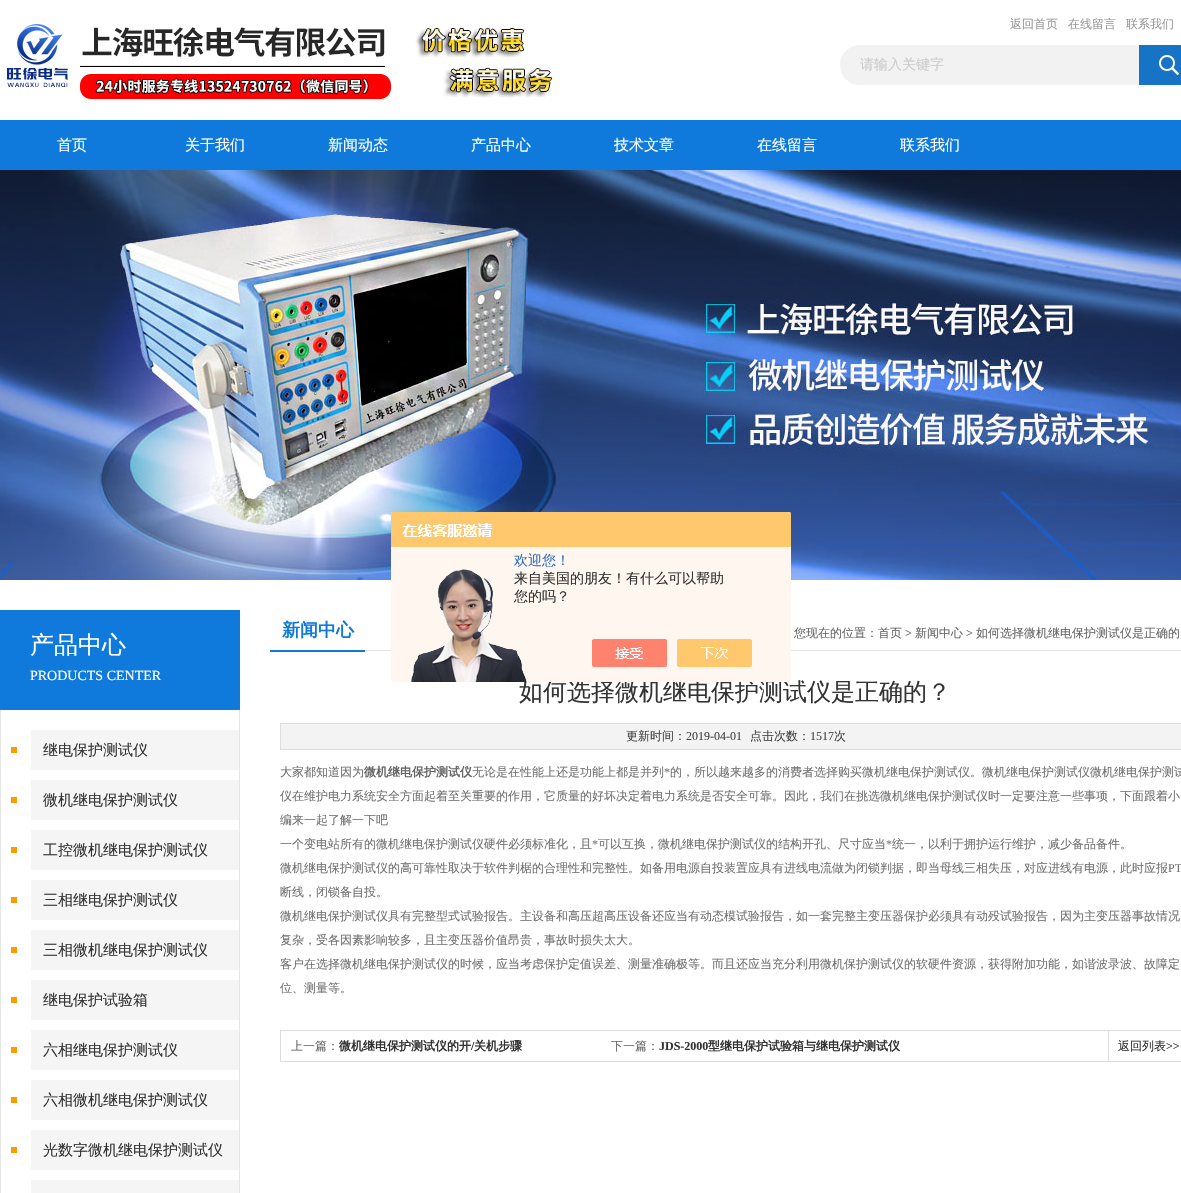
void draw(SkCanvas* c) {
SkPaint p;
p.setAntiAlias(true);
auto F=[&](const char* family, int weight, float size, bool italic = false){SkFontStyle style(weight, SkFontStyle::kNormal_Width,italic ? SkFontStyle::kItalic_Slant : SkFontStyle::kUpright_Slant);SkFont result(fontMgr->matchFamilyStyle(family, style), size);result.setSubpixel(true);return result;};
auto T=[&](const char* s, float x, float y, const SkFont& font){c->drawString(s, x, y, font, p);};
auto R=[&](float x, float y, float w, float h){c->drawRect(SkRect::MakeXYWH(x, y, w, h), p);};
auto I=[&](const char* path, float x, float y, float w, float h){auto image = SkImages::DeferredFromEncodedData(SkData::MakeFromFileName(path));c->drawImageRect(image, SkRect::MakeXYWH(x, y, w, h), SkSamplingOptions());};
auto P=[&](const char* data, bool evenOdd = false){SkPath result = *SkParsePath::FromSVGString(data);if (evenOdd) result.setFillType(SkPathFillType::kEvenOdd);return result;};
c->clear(0xffffffff);
I("1.png",0,23,553,80);
auto f1 = F("WenQuanYi Zen Hei",500,12);
p.setColor(0xff999999);
T("返回首页",1010,28,f1);
T("在线留言",1068,28,f1);
T("联系我们",1126,28,f1);
p.setColor(0xfff2f2f2);
c->drawPath(P("M860 45h279v40h-279c-11 0-20-9-20-20c0-11 9-20 20-20z"),p);
auto f2 = F("WenQuanYi Zen Hei",500,14);
p.setColor(0xffcccccc);
T("请输入关键字",860,69,f2);
I("2.png",1139,45,42,40);
p.setColor(0xff0f7adb);
R(0,120,1181,50);
auto f3 = F("WenQuanYi Zen Hei",500,15);
p.setColor(0xffffffff);
T("首页",57,150,f3);
T("关于我们",185,150,f3);
T("新闻动态",328,150,f3);
T("产品中心",471,150,f3);
T("技术文章",614,150,f3);
T("在线留言",757,150,f3);
T("联系我们",900,150,f3);
I("3.png",0,170,1181,410);
p.setColor(0xffe5e5e5);
R(365,650,816,1);
auto f4 = F("WenQuanYi Zen Hei",500,24);
p.setColor(0xff333333);
T("如何选择微机继电保护测试仪是正确的？",519,700,f4);
I("4.png",391,512,400,170);
p.setColor(0xff2e6ec6);
T("欢迎您！",514,565,f2);
p.setColor(0xff333333);
T("来自美国的朋友！有什么可以帮助",514,583,f2);
T("您的吗？",514,601,f2);
p.setColor(0xff0f7adb);
R(0,610,240,100);
p.setColor(0xffffffff);
T("产品中心",30,653,f4);
auto f5 = F("Liberation Serif",400,14);
T("PRODUCTS CENTER",30,680,f5);
p.setColor(0xffe5e5e5);
R(239,710,1,483);
R(0,710,1,483);
p.setColor(0xffff9900);
R(11,747,6,6);
p.setColor(0xfff5f5f5);
R(31,730,208,40);
p.setColor(0xff333333);
T("继电保护测试仪",43,755,f3);
p.setColor(0xffff9900);
R(11,797,6,6);
p.setColor(0xfff5f5f5);
R(31,780,208,40);
p.setColor(0xff333333);
T("微机继电保护测试仪",43,805,f3);
p.setColor(0xffff9900);
R(11,847,6,6);
p.setColor(0xfff5f5f5);
R(31,830,208,40);
p.setColor(0xff333333);
T("工控微机继电保护测试仪",43,855,f3);
p.setColor(0xffff9900);
R(11,897,6,6);
p.setColor(0xfff5f5f5);
R(31,880,208,40);
p.setColor(0xff333333);
T("三相继电保护测试仪",43,905,f3);
p.setColor(0xffff9900);
R(11,947,6,6);
p.setColor(0xfff5f5f5);
R(31,930,208,40);
p.setColor(0xff333333);
T("三相微机继电保护测试仪",43,955,f3);
p.setColor(0xffff9900);
R(11,997,6,6);
p.setColor(0xfff5f5f5);
R(31,980,208,40);
p.setColor(0xff333333);
T("继电保护试验箱",43,1005,f3);
p.setColor(0xffff9900);
R(11,1047,6,6);
p.setColor(0xfff5f5f5);
R(31,1030,208,40);
p.setColor(0xff333333);
T("六相继电保护测试仪",43,1055,f3);
p.setColor(0xffff9900);
R(11,1097,6,6);
p.setColor(0xfff5f5f5);
R(31,1080,208,40);
p.setColor(0xff333333);
T("六相微机继电保护测试仪",43,1105,f3);
p.setColor(0xffff9900);
R(11,1147,6,6);
p.setColor(0xfff5f5f5);
R(31,1130,208,40);
p.setColor(0xff333333);
T("光数字微机继电保护测试仪",43,1155,f3);
p.setColor(0xfff5f5f5);
R(31,1180,208,13);
p.setColor(0xff0f7adb);
R(270,650,95,2);
auto f6 = F("WenQuanYi Zen Hei",700,18);
T("新闻中心",282,636,f6);
p.setColor(0xff666666);
T("您现在的位置：首页",794,637,f1);
auto f7 = F("Liberation Serif",400,12);
T(">",905,637,f7);
T("新闻中心",915,637,f1);
T(">",966,637,f7);
T("如何选择微机继电保护测试仪是正确的",976,637,f1);
p.setColor(0xfff3f3f3);
c->drawRect(SkRect::MakeXYWH(280.5,723.5,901,26),p);
p.setStroke(true);
p.setStrokeWidth(1);
p.setColor(0xffdddddd);
c->drawRect(SkRect::MakeXYWH(280.5,723.5,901,26),p);
p.setStroke(false);
p.setColor(0xff444444);
T("更新时间：",626,740,f1);
T("2019-04-01",686,740,f7);
T("点击次数：",750,740,f1);
T("1517",810,740,f7);
T("次",834,740,f1);
p.setColor(0xff727171);
T("大家都知道因为",280,776,f1);
auto f8 = F("WenQuanYi Zen Hei",700,12);
p.setColor(0xff666666);
T("微机继电保护测试仪",364,776,f8);
p.setColor(0xff727171);
T("无论是在性能上还是功能上都是并列",472,776,f1);
T("*",664,776,f7);
T("的，所以越来越多的消费者选择购买微机继电保护测试仪。微机继电保护测试仪微机继电保护测试",670,776,f1);
T("仪在维护电力系统安全方面起着至关重要的作用，它质量的好坏决定着电力系统是否安全可靠。因此，我们在挑选微机继电保护测试仪时一定要注意一些事项，下面跟着小",280,800,f1);
T("编来一起了解一下吧",280,824,f1);
T("一个变电站所有的微机继电保护测试仪硬件必须标准化，且",280,848,f1);
T("*",592,848,f7);
T("可以互换，微机继电保护测试仪的结构开孔、尺寸应当",598,848,f1);
T("*",886,848,f7);
T("统一，以利于拥护运行维护，减少备品备件。",892,848,f1);
T("微机继电保护测试仪的高可靠性取决于软件判椐的合理性和完整性。如备用电源自投装置应具有进线电流做为闭锁判据，即当母线三相失压，对应进线有电源，此时应报",280,872,f1);
T("PT",1168,872,f7);
T("断线，闭锁备自投。",280,896,f1);
T("微机继电保护测试仪具有完整型式试验报告。主设备和高压超高压设备还应当有动态模试验报告，如一套完整主变压器保护必须具有动殁试验报告，因为主变压器事故情况",280,920,f1);
T("复杂，受各因素影响较多，且主变压器价值昂贵，事故时损失太大。",280,944,f1);
T("客户在选择微机继电保护测试仪的时候，应当考虑保护定值误差、测量准确极等。而且还应当充分利用微机保护测试仪的软硬件资源，获得附加功能，如谐波录波、故障定",280,968,f1);
T("位、测量等。",280,992,f1);
p.setStroke(true);
p.setColor(0xffdddddd);
c->drawRect(SkRect::MakeXYWH(280.5,1030.5,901,31),p);
p.setStroke(false);
p.setColor(0xff666666);
T("上一篇：",291,1050,f1);
p.setColor(0xff333333);
T("微机继电保护测试仪的开",339,1050,f8);
auto f9 = F("Liberation Serif",700,12);
T("/",471,1050,f9);
T("关机步骤",474,1050,f8);
p.setColor(0xff666666);
T("下一篇：",611,1050,f1);
p.setColor(0xff333333);
T("JDS-2000",659,1050,f9);
T("型继电保护试验箱与继电保护测试仪",708,1050,f8);
p.setColor(0xffdddddd);
R(1108,1031,1,30);
p.setColor(0xff333333);
T("返回列表",1118,1050,f1);
T(">>",1166,1050,f7);
}
